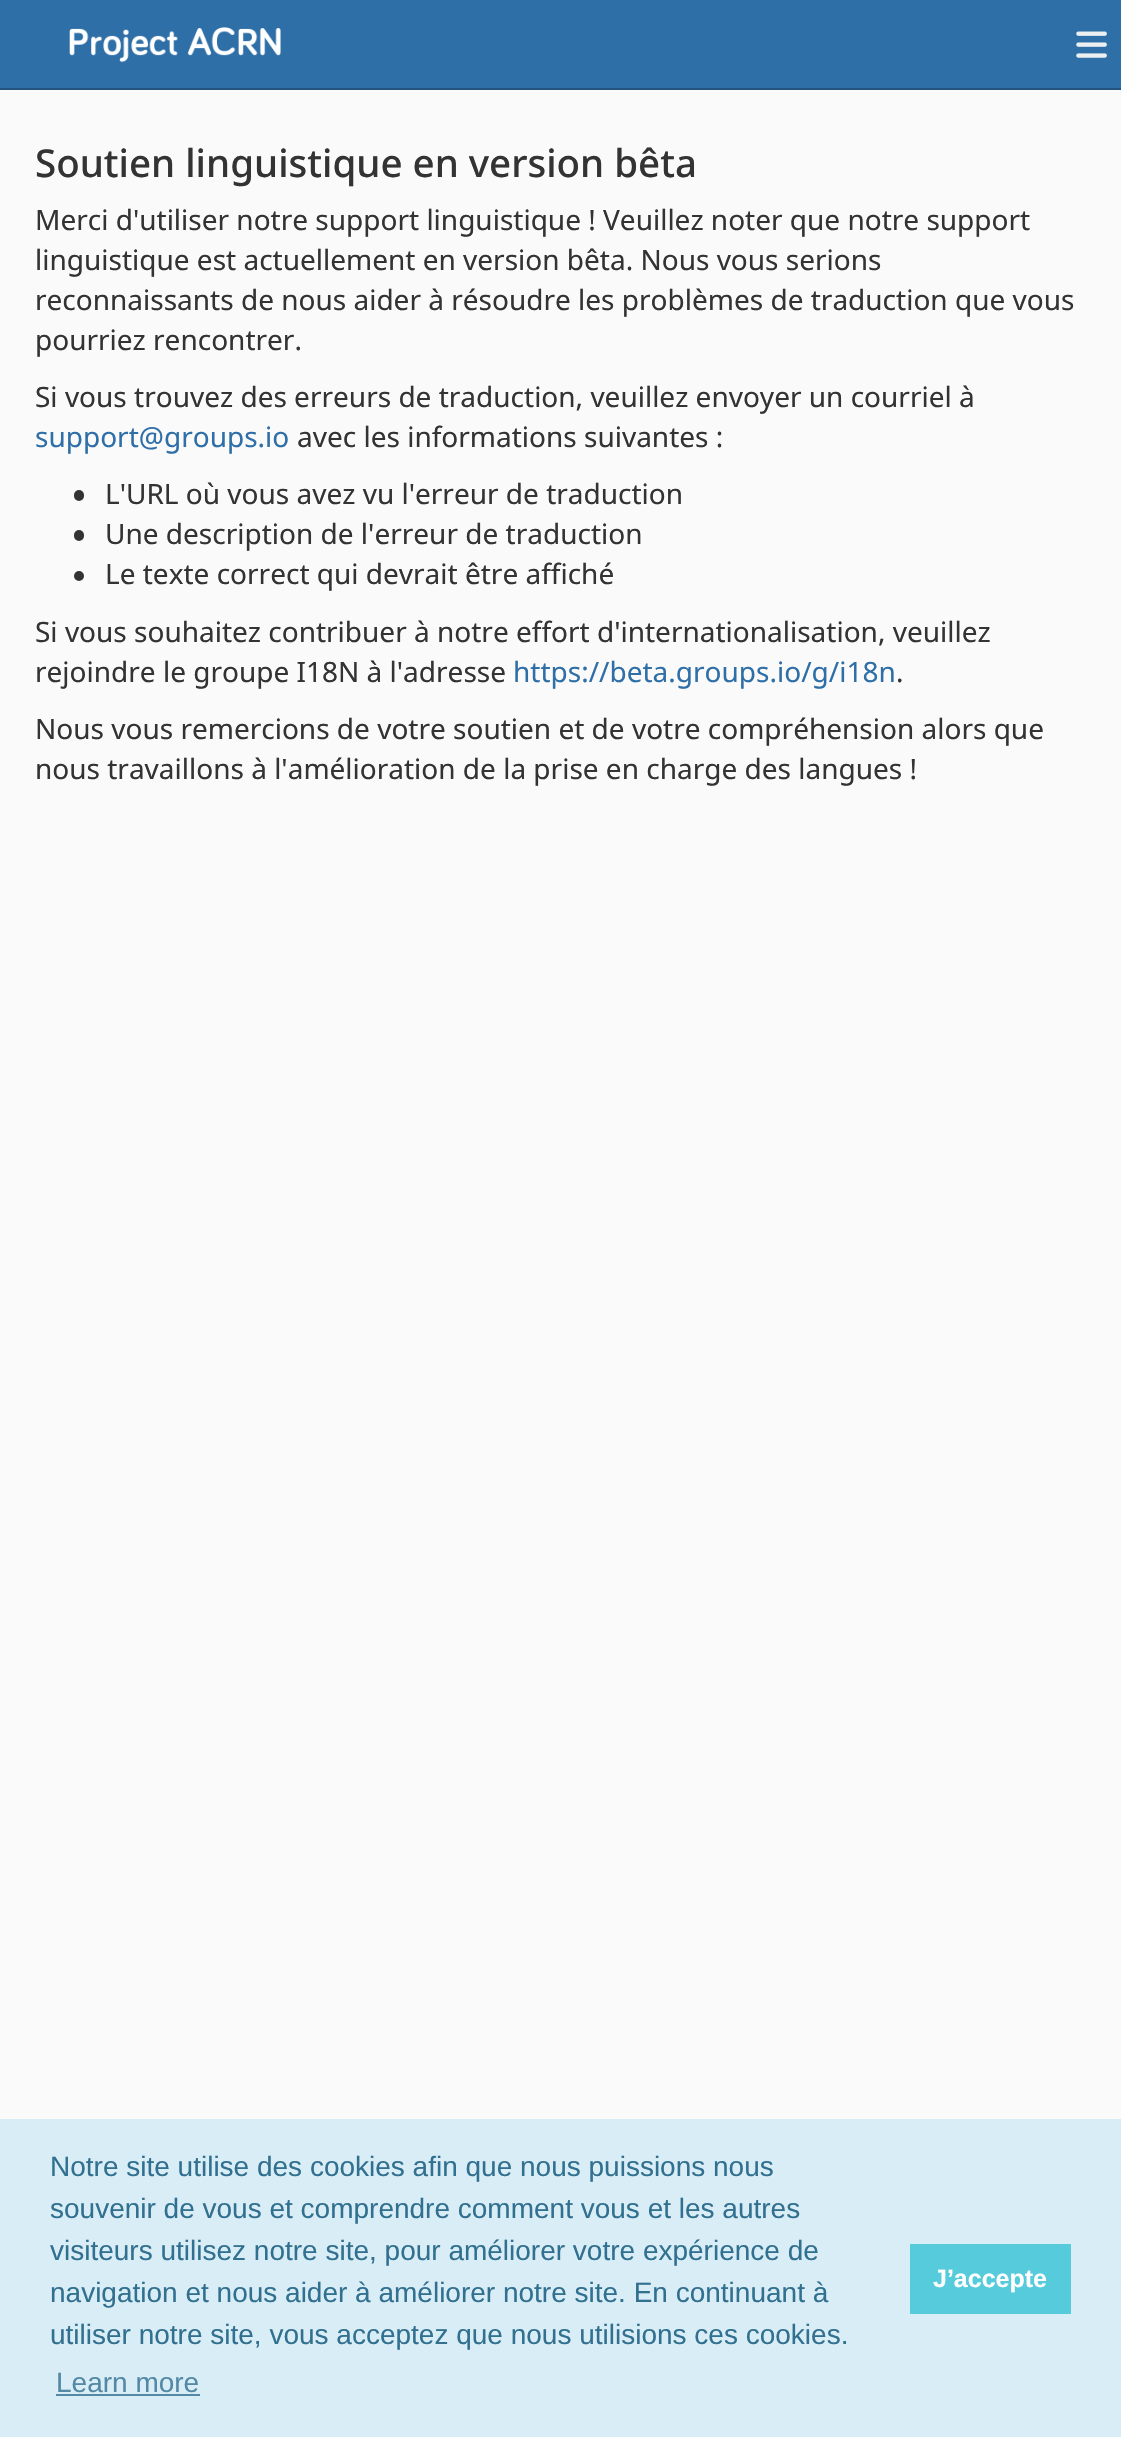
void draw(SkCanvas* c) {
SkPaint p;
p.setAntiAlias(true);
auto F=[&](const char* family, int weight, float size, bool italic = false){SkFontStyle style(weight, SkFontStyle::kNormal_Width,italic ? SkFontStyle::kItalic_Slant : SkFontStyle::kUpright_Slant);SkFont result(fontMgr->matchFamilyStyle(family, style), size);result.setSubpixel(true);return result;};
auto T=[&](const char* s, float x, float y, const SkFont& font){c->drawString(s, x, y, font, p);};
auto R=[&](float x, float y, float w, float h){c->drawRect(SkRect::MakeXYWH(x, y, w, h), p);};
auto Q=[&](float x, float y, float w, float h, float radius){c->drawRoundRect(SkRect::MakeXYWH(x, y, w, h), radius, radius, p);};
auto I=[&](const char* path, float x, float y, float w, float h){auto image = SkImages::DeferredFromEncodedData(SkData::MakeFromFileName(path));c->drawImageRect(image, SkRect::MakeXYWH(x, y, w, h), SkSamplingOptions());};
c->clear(0xfffafafa);
p.setColor(0xff2f6fa7);
R(0,0,1121,88);
p.setColor(0xff245580);
R(0,88,1121,2);
I("1.png",69,27,212,36);
I("2.png",1076,31,31,27);
auto f1 = F("Noto Sans",500,38.5);
p.setColor(0xff333333);
T("Soutien linguistique en version bêta",35,177,f1);
auto f2 = F("Noto Sans",400,28);
T("Merci d'utiliser notre support linguistique ! Veuillez noter que notre support",35,230,f2);
T("linguistique est actuellement en version bêta. Nous vous serions",35,270,f2);
T("reconnaissants de nous aider à résoudre les problèmes de traduction que vous",35,310,f2);
T("pourriez rencontrer.",35,350,f2);
T("Si vous trouvez des erreurs de traduction, veuillez envoyer un courriel à",35,407,f2);
p.setColor(0xff2f6fa7);
T("support@groups.io",35,447,f2);
p.setColor(0xff333333);
T("avec les informations suivantes :",297,447,f2);
Q(74,490,10,11,5);
T("L'URL où vous avez vu l'erreur de traduction",105,504,f2);
Q(74,530,10,11,5);
T("Une description de l'erreur de traduction",105,544,f2);
c->drawCircle(79,576,5,p);
T("Le texte correct qui devrait être affiché",105,584,f2);
T("Si vous souhaitez contribuer à notre effort d'internationalisation, veuillez",35,642,f2);
T("rejoindre le groupe I18N à l'adresse",35,682,f2);
p.setColor(0xff2f6fa7);
T("https://beta.groups.io/g/i18n",513,682,f2);
p.setColor(0xff333333);
T(".",896,682,f2);
T("Nous vous remercions de votre soutien et de votre compréhension alors que",35,739,f2);
T("nous travaillons à l'amélioration de la prise en charge des langues !",35,779,f2);
p.setColor(0xffd9edf7);
R(0,2119,1121,318);
auto f3 = F("Liberation Sans",400,28);
p.setColor(0xff31708f);
T("Notre site utilise des cookies afin que nous puissions nous",50,2176,f3);
T("souvenir de vous et comprendre comment vous et les autres",50,2218,f3);
T("visiteurs utilisez notre site, pour améliorer votre expérience de",50,2260,f3);
T("navigation et nous aider à améliorer notre site. En continuant à",50,2302,f3);
T("utiliser notre site, vous acceptez que nous utilisions ces cookies.",50,2344,f3);
p.setColor(0xff5389a4);
T("Learn more",56,2392,f3);
R(56,2394,144,2);
p.setColor(0xff56cbdb);
R(910,2244,161,70);
auto f4 = F("Liberation Sans",700,25);
p.setColor(0xffffffff);
T("J’accepte",933,2287,f4);
}
